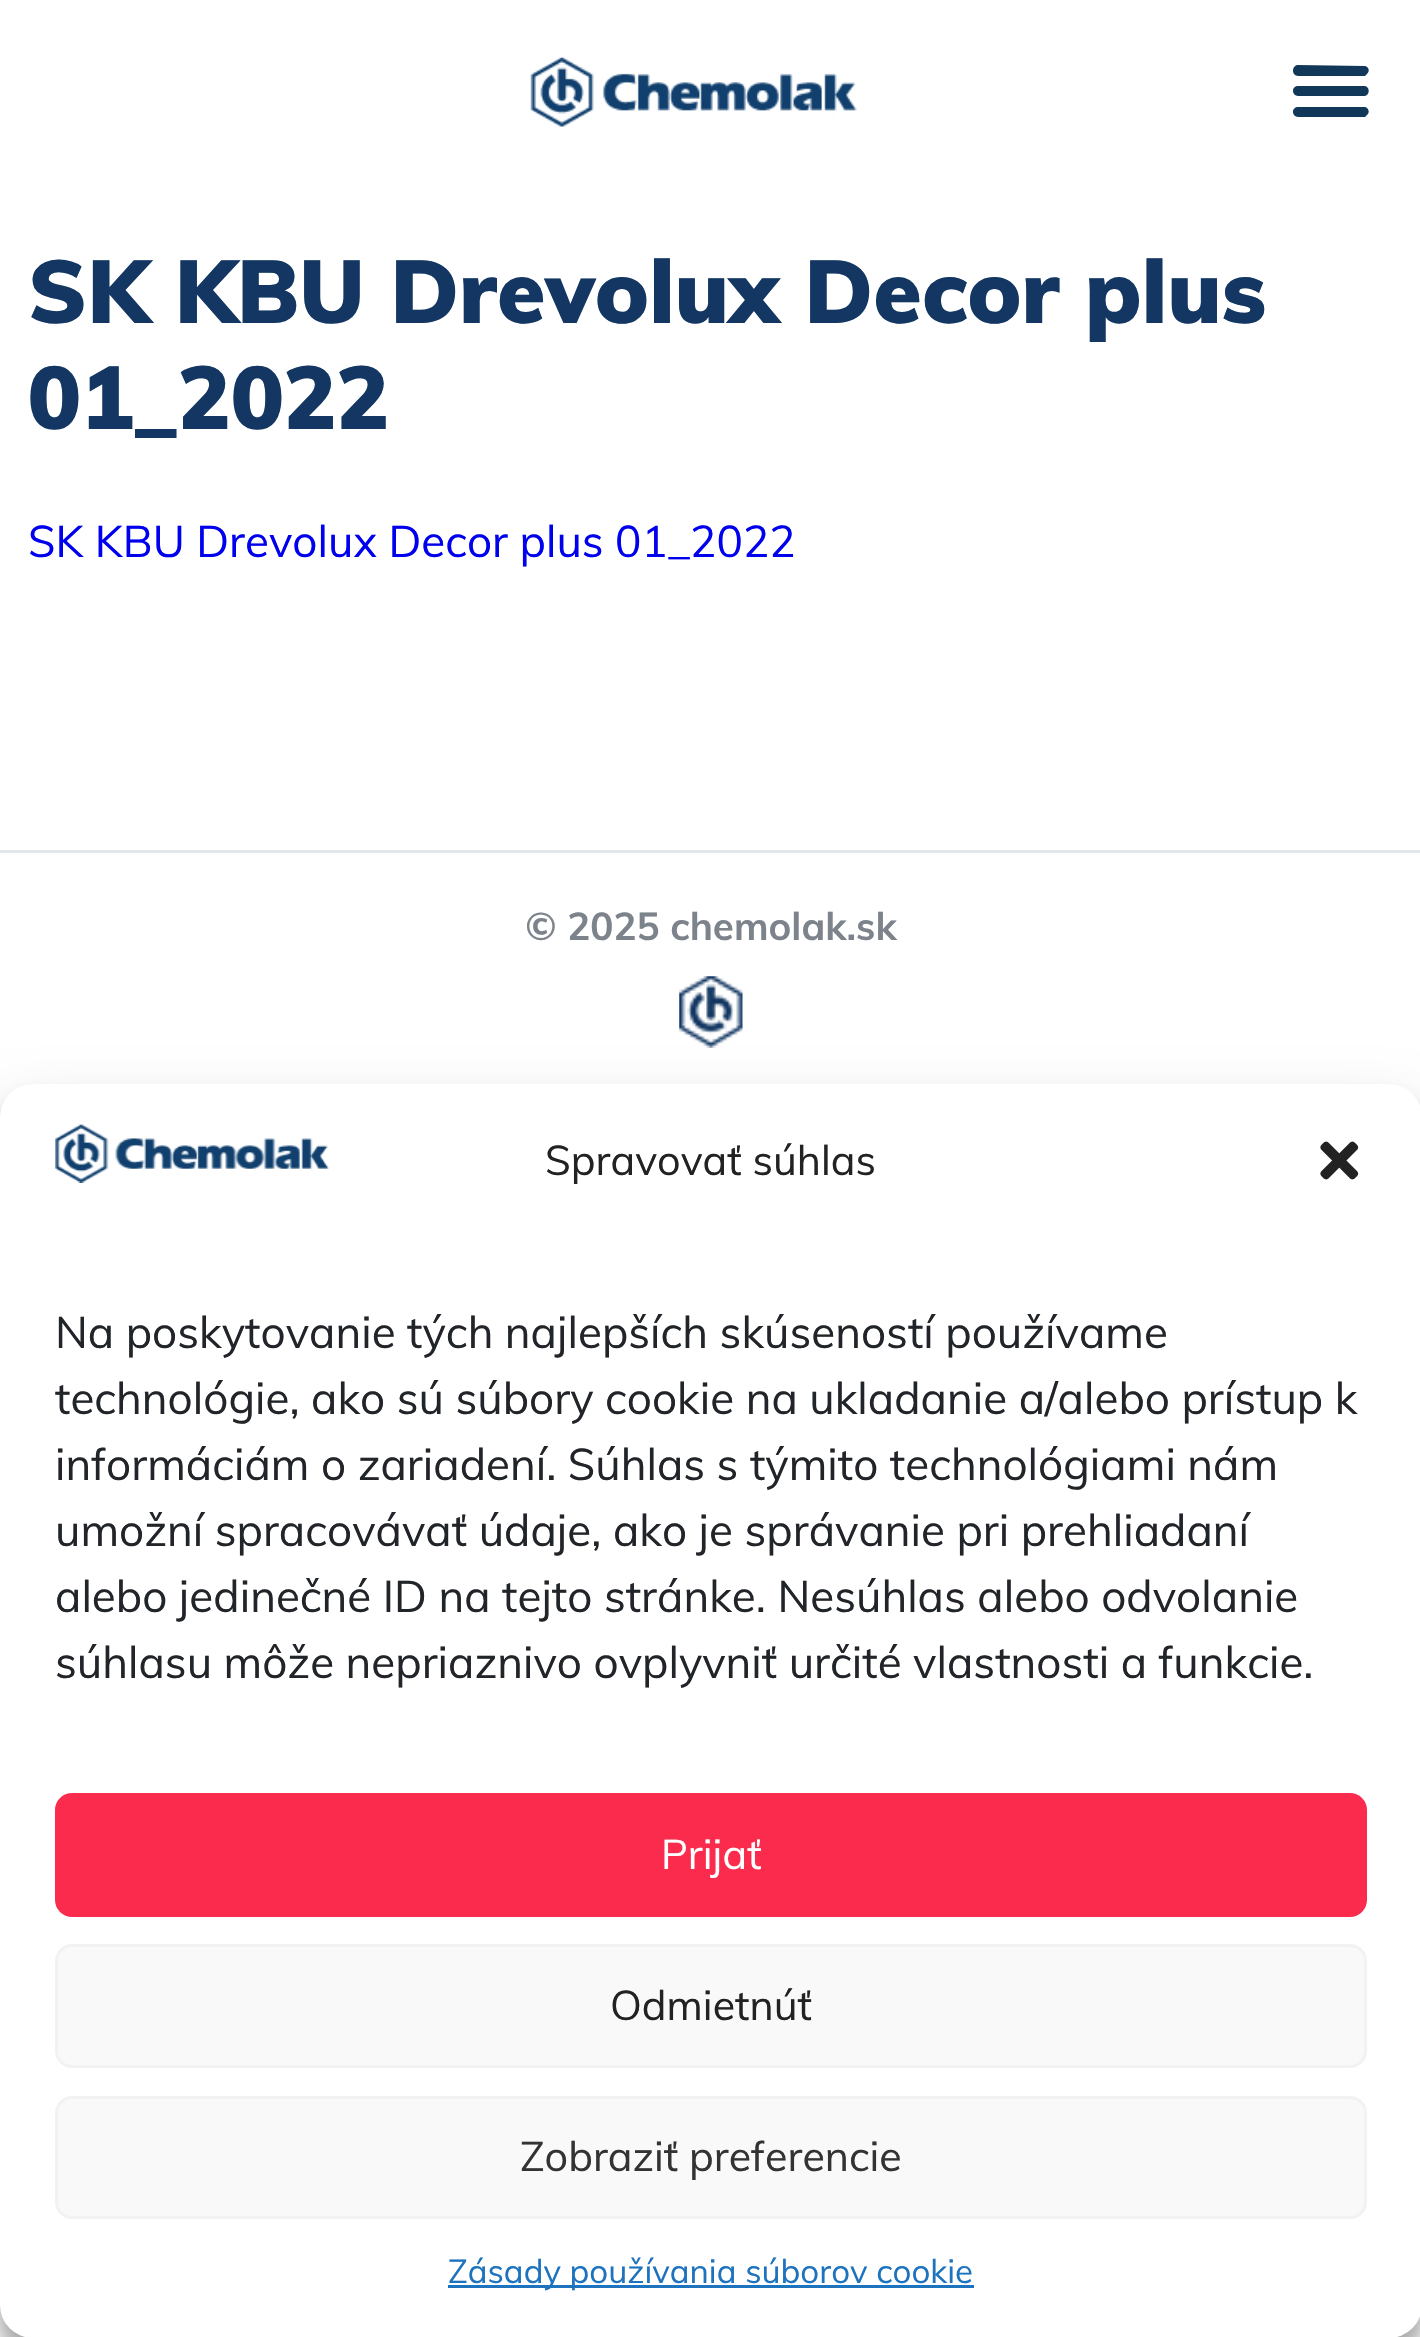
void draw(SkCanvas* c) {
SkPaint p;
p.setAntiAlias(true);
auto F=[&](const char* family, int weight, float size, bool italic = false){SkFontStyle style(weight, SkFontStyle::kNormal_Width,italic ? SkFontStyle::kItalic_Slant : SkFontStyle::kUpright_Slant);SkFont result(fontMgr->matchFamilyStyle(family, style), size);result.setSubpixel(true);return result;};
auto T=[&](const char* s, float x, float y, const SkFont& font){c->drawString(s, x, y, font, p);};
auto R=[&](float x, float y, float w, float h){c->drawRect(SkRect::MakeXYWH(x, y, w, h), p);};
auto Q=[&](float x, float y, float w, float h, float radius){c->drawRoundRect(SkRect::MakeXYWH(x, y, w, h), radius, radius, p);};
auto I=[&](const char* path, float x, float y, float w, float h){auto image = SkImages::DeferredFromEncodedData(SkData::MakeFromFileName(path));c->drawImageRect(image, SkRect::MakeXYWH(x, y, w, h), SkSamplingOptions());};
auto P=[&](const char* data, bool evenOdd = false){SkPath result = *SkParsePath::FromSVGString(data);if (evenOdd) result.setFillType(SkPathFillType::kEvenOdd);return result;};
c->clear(0xffffffff);
I("1.png",530,57,327,70);
p.setColor(0xff123859);
c->drawPath(P("M1298 76h67l2-2c3-3 2-7-2-8l-68-1c-6 2-5 11 1 11zm0 20h67l2-1c3-3 2-8-2-9h-68c-6 1-5 10 1 10zm0 21h67l2-2c3-2 2-7-2-8h-68c-6 1-5 10 1 10z"),p);
auto f1 = F("Muli",900,88);
p.setColor(0xff133762);
T("SK KBU Drevolux Decor plus",28,323,f1);
T("01_2022",28,429,f1);
auto f2 = F("Muli",400,44);
p.setColor(0xff0000ee);
T("SK KBU Drevolux Decor plus 01_2022",28,557,f2);
p.setColor(0xffe2e7ec);
R(0,850,1420,3);
auto f3 = F("Muli",700,38.5);
p.setColor(0xff7c838b);
T("© 2025 chemolak.sk",525,940,f3);
I("2.png",679,976,64,72);
p.setColor(0x3b000000);
p.setMaskFilter(SkMaskFilter::MakeBlur(kNormal_SkBlurStyle, 8));
c->drawRoundRect(SkRect::MakeXYWH(0,1100,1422,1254),33,33,p);
p.setMaskFilter(nullptr);
p.setColor(0x30000000);
p.setMaskFilter(SkMaskFilter::MakeBlur(kNormal_SkBlurStyle, 27.5));
c->drawRoundRect(SkRect::MakeXYWH(0,1111,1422,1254),33,33,p);
p.setMaskFilter(nullptr);
p.setColor(0xffffffff);
Q(0,1084,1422,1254,33);
I("3.png",55,1124,274,59);
auto f4 = F("Muli",400,41.25);
p.setColor(0xff222222);
T("Spravovať súhlas",545,1175,f4);
I("4.png",1320,1141,39,39);
p.setColor(0xff212428);
T("Na poskytovanie tých najlepších skúseností používame",55,1348,f2);
T("technológie, ako sú súbory cookie na ukladanie a/alebo prístup k",55,1414,f2);
T("informáciám o zariadení. Súhlas s týmito technológiami nám",55,1480,f2);
T("umožní spracovávať údaje, ako je správanie pri prehliadaní",55,1546,f2);
T("alebo jedinečné ID na tejto stránke. Nesúhlas alebo odvolanie",55,1612,f2);
T("súhlasu môže nepriaznivo ovplyvniť určité vlastnosti a funkcie.",55,1678,f2);
p.setColor(0xfffb2b4e);
Q(55,1793,1312,124,17);
p.setColor(0xffffffff);
T("Prijať",661,1869,f4);
p.setColor(0xfff9f9f9);
c->drawRoundRect(SkRect::MakeXYWH(56.5,1945.5,1309,121),15.5,15.5,p);
p.setStroke(true);
p.setStrokeWidth(3);
p.setColor(0xfff2f2f2);
c->drawRoundRect(SkRect::MakeXYWH(56.5,1945.5,1309,121),15.5,15.5,p);
p.setStroke(false);
p.setColor(0xff222222);
T("Odmietnúť",610,2020,f4);
p.setColor(0xfff9f9f9);
c->drawRoundRect(SkRect::MakeXYWH(56.5,2097.5,1309,120),15.5,15.5,p);
p.setStroke(true);
p.setColor(0xfff2f2f2);
c->drawRoundRect(SkRect::MakeXYWH(56.5,2097.5,1309,120),15.5,15.5,p);
p.setStroke(false);
p.setColor(0xff333333);
T("Zobraziť preferencie",520,2171,f4);
p.setColor(0xff1e73be);
R(448,2285,526,3);
auto f5 = F("Muli",400,33);
T("Zásady používania súborov cookie",448,2283,f5);
}
